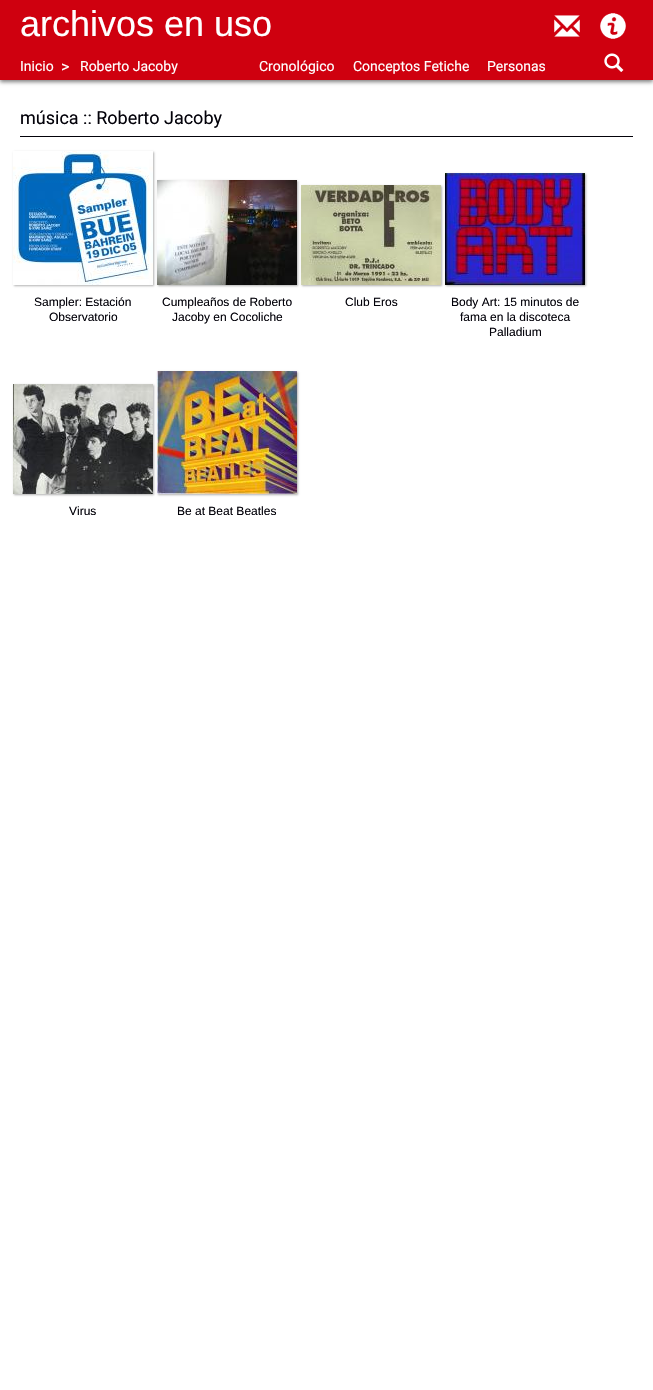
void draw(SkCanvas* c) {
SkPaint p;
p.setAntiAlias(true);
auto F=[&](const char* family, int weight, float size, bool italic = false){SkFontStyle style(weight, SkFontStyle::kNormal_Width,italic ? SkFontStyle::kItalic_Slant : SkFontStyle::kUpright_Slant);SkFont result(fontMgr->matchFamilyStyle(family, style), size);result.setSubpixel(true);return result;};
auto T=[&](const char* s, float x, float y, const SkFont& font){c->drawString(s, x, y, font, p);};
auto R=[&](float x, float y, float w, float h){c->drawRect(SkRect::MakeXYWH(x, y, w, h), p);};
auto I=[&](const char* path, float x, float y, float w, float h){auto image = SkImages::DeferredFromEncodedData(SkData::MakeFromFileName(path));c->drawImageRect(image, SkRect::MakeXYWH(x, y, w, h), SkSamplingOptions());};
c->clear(0xffffffff);
p.setColor(0x80000000);
p.setMaskFilter(SkMaskFilter::MakeBlur(kNormal_SkBlurStyle, 2));
c->drawRect(SkRect::MakeXYWH(0,2,653,80),p);
p.setMaskFilter(nullptr);
p.setColor(0xffcf000f);
R(0,0,653,80);
auto f1 = F("Liberation Sans",400,36);
p.setColor(0xffffffff);
T("archivos en uso",20,36,f1);
I("1.png",554,15,26,22);
I("2.png",600,13,26,26);
auto f2 = F("Roboto",400,14);
T("Inicio",20,71,f2);
auto f3 = F("Roboto",400,16);
T(">",61,72,f3);
T("Roberto Jacoby",80,71,f2);
T("Cronológico",259,71,f2);
T("Conceptos Fetiche",353,71,f2);
T("Personas",487,71,f2);
I("3.png",604,53,20,19);
p.setColor(0xff03020a);
R(20,136,613,1);
auto f4 = F("Roboto",400,18);
T("música :: Roberto Jacoby",20,124,f4);
p.setColor(0x4d000000);
p.setMaskFilter(SkMaskFilter::MakeBlur(kNormal_SkBlurStyle, 1));
c->drawRect(SkRect::MakeXYWH(14,152,140,134),p);
p.setMaskFilter(nullptr);
I("4.png",13,151,140,134);
auto f5 = F("Liberation Sans",400,12);
p.setColor(0xff03020a);
T("Sampler: Estación",34,306,f5);
T("Observatorio",49,321,f5);
p.setColor(0x4d000000);
p.setMaskFilter(SkMaskFilter::MakeBlur(kNormal_SkBlurStyle, 1));
c->drawRect(SkRect::MakeXYWH(158,181,140,105),p);
p.setMaskFilter(nullptr);
I("5.png",157,180,140,105);
p.setColor(0xff03020a);
T("Cumpleaños de Roberto",162,306,f5);
T("Jacoby en Cocoliche",172,321,f5);
p.setColor(0x4d000000);
p.setMaskFilter(SkMaskFilter::MakeBlur(kNormal_SkBlurStyle, 1));
c->drawRect(SkRect::MakeXYWH(302,186,140,100),p);
p.setMaskFilter(nullptr);
I("6.png",301,185,140,100);
p.setColor(0xff03020a);
T("Club Eros",345,306,f5);
p.setColor(0x4d000000);
p.setMaskFilter(SkMaskFilter::MakeBlur(kNormal_SkBlurStyle, 1));
c->drawRect(SkRect::MakeXYWH(446,174,140,112),p);
p.setMaskFilter(nullptr);
I("7.png",445,173,140,112);
p.setColor(0xff03020a);
T("Body Art: 15 minutos de",451,306,f5);
T("fama en la discoteca",460,321,f5);
T("Palladium",489,336,f5);
p.setColor(0x4d000000);
p.setMaskFilter(SkMaskFilter::MakeBlur(kNormal_SkBlurStyle, 1));
c->drawRect(SkRect::MakeXYWH(14,385,140,110),p);
p.setMaskFilter(nullptr);
I("8.png",13,384,140,110);
p.setColor(0xff03020a);
T("Virus",69,515,f5);
p.setColor(0x4d000000);
p.setMaskFilter(SkMaskFilter::MakeBlur(kNormal_SkBlurStyle, 1));
c->drawRect(SkRect::MakeXYWH(158,372,140,123),p);
p.setMaskFilter(nullptr);
I("9.png",157,371,140,123);
p.setColor(0xff03020a);
T("Be at Beat Beatles",177,515,f5);
}
